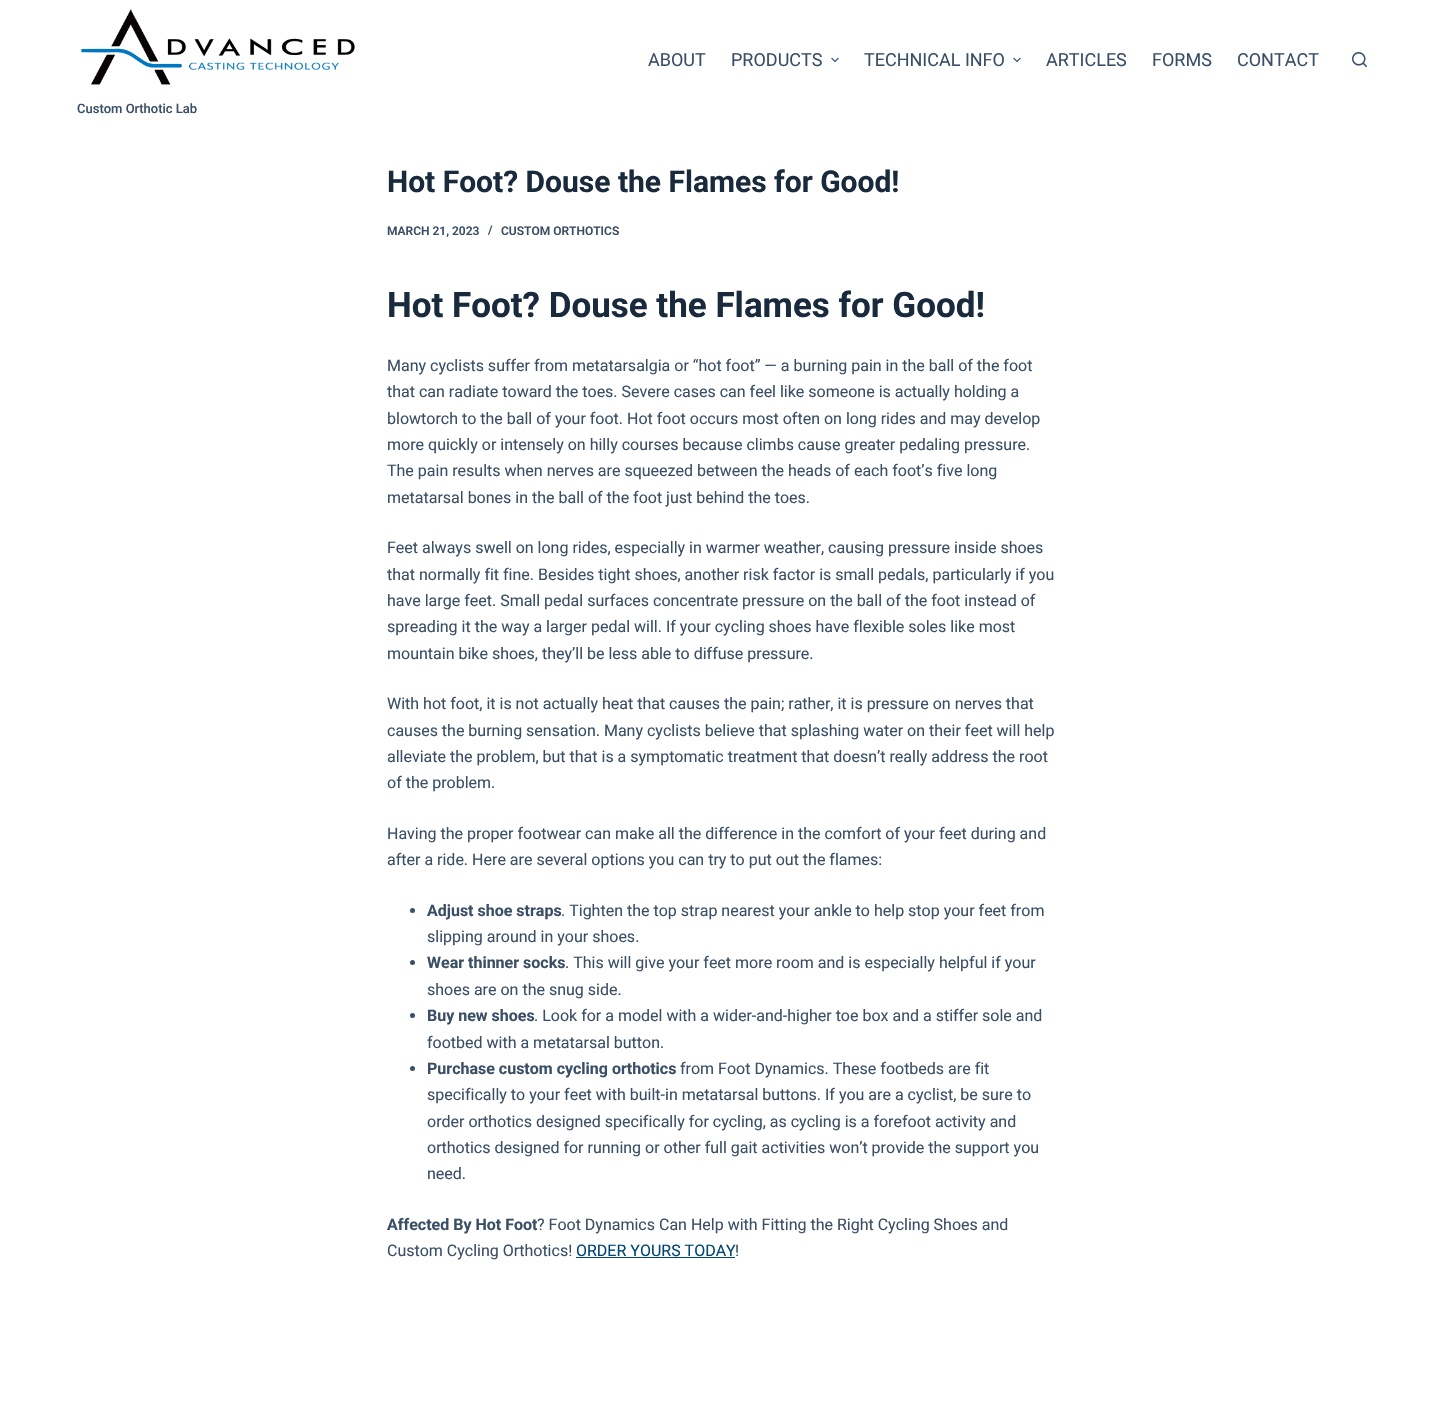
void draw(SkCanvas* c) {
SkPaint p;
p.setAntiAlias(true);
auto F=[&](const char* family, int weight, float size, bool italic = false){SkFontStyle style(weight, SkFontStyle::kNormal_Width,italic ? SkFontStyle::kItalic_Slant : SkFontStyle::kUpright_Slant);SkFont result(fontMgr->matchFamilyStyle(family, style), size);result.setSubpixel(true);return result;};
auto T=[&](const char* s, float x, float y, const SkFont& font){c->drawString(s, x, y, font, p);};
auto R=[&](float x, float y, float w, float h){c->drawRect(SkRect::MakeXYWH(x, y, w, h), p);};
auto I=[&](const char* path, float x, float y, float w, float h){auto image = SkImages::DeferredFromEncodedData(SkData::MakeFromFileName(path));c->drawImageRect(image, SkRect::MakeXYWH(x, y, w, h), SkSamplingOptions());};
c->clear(0xffffffff);
auto f1 = F("Roboto",400,18);
p.setColor(0xff3a4f66);
T("ABOUT",648,66,f1);
T("PRODUCTS",731,66,f1);
I("1.png",831,57,8,6);
T("TECHNICAL INFO",864,66,f1);
I("1.png",1013,57,8,6);
T("ARTICLES",1046,66,f1);
T("FORMS",1152,66,f1);
T("CONTACT",1237,66,f1);
I("2.png",1352,52,15,15);
I("3.png",81,9,274,76);
auto f2 = F("Roboto",500,13);
T("Custom Orthotic Lab",77,113,f2);
auto f3 = F("Roboto",700,30);
p.setColor(0xff192a3d);
T("Hot Foot? Douse the Flames for Good!",387,192,f3);
auto f4 = F("Roboto",600,12);
p.setColor(0xff3a4f66);
T("MARCH 21, 2023",387,235,f4);
T("/",488,234,f4);
T("CUSTOM ORTHOTICS",501,235,f4);
auto f5 = F("Roboto",700,35);
p.setColor(0xff192a3d);
T("Hot Foot? Douse the Flames for Good!",387,317,f5);
auto f6 = F("Roboto",400,16);
p.setColor(0xff3a4f66);
T("Many cyclists suffer from metatarsalgia or “hot foot” — a burning pain in the ball of the foot",387,371,f6);
T("that can radiate toward the toes. Severe cases can feel like someone is actually holding a",387,397,f6);
T("blowtorch to the ball of your foot. Hot foot occurs most often on long rides and may develop",387,424,f6);
T("more quickly or intensely on hilly courses because climbs cause greater pedaling pressure.",387,450,f6);
T("The pain results when nerves are squeezed between the heads of each foot’s five long",387,476,f6);
T("metatarsal bones in the ball of the foot just behind the toes.",387,503,f6);
T("Feet always swell on long rides, especially in warmer weather, causing pressure inside shoes",387,553,f6);
T("that normally fit fine. Besides tight shoes, another risk factor is small pedals, particularly if you",387,580,f6);
T("have large feet. Small pedal surfaces concentrate pressure on the ball of the foot instead of",387,606,f6);
T("spreading it the way a larger pedal will. If your cycling shoes have flexible soles like most",387,632,f6);
T("mountain bike shoes, they’ll be less able to diffuse pressure.",387,659,f6);
T("With hot foot, it is not actually heat that causes the pain; rather, it is pressure on nerves that",387,709,f6);
T("causes the burning sensation. Many cyclists believe that splashing water on their feet will help",387,736,f6);
T("alleviate the problem, but that is a symptomatic treatment that doesn’t really address the root",387,762,f6);
T("of the problem.",387,788,f6);
T("Having the proper footwear can make all the difference in the comfort of your feet during and",387,839,f6);
T("after a ride. Here are several options you can try to put out the flames:",387,865,f6);
c->drawCircle(412.5,910.5,2.5,p);
auto f7 = F("Roboto",700,16);
T("Adjust shoe straps",427,916,f7);
T(". Tighten the top strap nearest your ankle to help stop your feet from",561,916,f6);
T("slipping around in your shoes.",427,942,f6);
c->drawCircle(412.5,962.5,2.5,p);
T("Wear thinner socks",427,968,f7);
T(". This will give your feet more room and is especially helpful if your",565,968,f6);
T("shoes are on the snug side.",427,995,f6);
c->drawCircle(412.5,1015.5,2.5,p);
T("Buy new shoes",427,1021,f7);
T(". Look for a model with a wider-and-higher toe box and a stiffer sole and",534,1021,f6);
T("footbed with a metatarsal button.",427,1048,f6);
c->drawCircle(412.5,1068.5,2.5,p);
T("Purchase custom cycling orthotics",427,1074,f7);
T("from Foot Dynamics. These footbeds are fit",680,1074,f6);
T("specifically to your feet with built-in metatarsal buttons. If you are a cyclist, be sure to",427,1100,f6);
T("order orthotics designed specifically for cycling, as cycling is a forefoot activity and",427,1127,f6);
T("orthotics designed for running or other full gait activities won’t provide the support you",427,1153,f6);
T("need.",427,1179,f6);
T("Affected By Hot Foot",387,1230,f7);
T("? Foot Dynamics Can Help with Fitting the Right Cycling Shoes and",537,1230,f6);
T("Custom Cycling Orthotics!",387,1256,f6);
p.setColor(0xff004773);
T("ORDER YOURS TODAY",576,1256,f6);
R(576,1257,159,1);
p.setColor(0xff3a4f66);
T("!",735,1256,f6);
}
